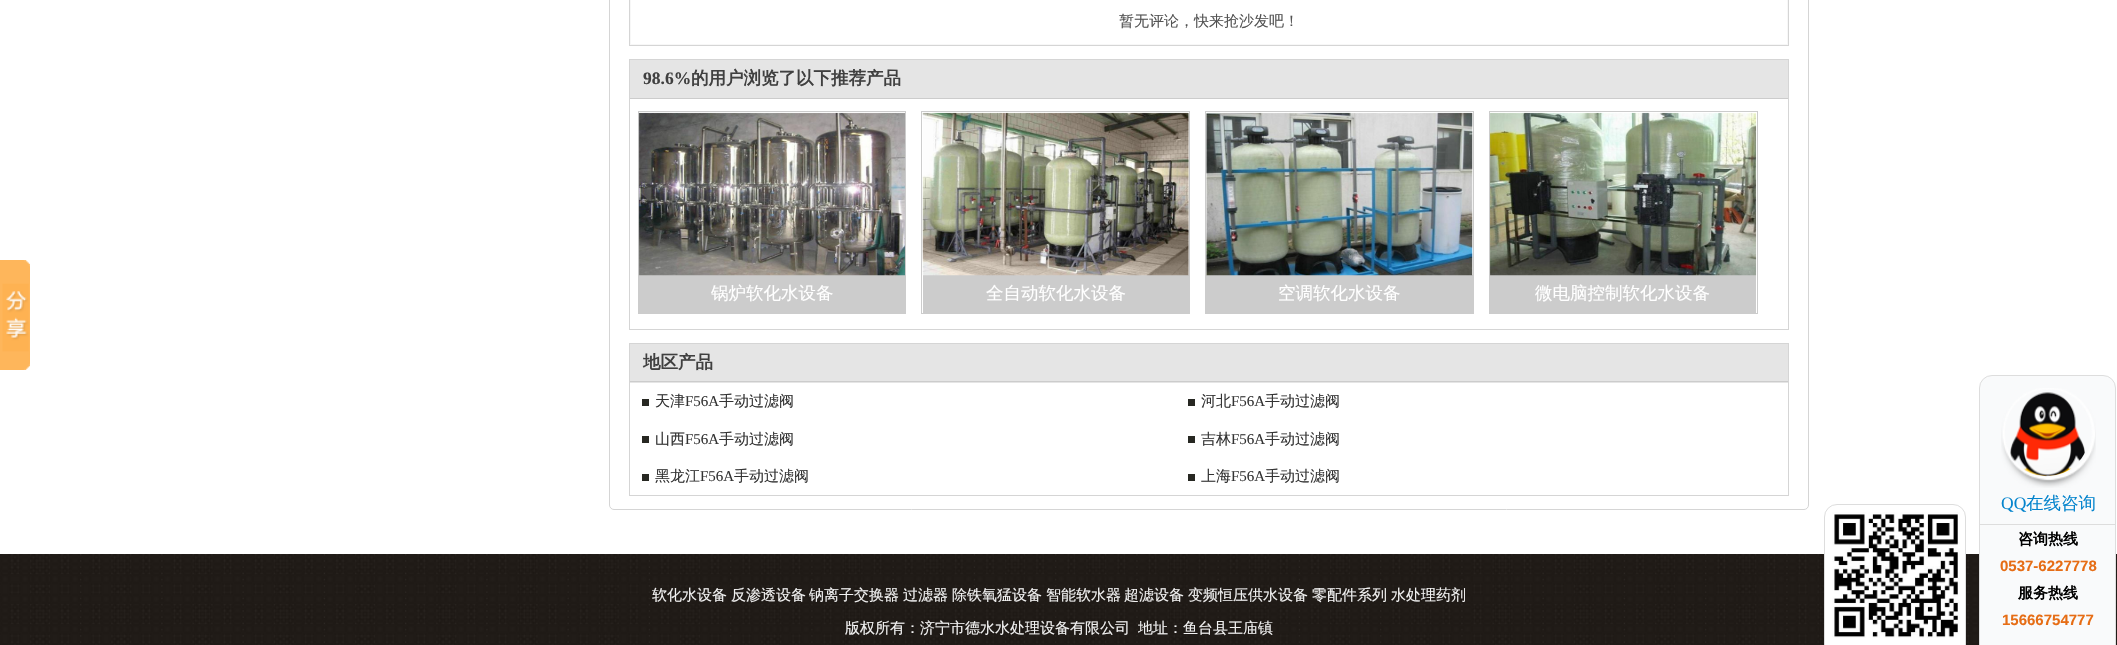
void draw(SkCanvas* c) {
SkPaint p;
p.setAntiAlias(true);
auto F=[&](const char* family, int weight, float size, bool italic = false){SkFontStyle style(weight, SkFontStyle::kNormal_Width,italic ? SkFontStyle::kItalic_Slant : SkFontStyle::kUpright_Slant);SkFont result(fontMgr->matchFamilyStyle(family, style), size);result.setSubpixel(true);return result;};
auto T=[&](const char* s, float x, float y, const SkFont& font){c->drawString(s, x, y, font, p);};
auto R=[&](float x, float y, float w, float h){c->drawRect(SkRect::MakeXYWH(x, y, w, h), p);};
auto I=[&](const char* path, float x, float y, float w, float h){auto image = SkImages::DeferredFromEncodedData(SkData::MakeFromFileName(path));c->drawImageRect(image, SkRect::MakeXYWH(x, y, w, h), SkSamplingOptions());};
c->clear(0xffffffff);
I("1.png",0,260,30,110);
p.setStroke(true);
p.setStrokeWidth(1);
p.setColor(0xffd5d5d5);
c->drawRoundRect(SkRect::MakeXYWH(609.5,-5.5,1199,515),4.5,4.5,p);
c->drawRect(SkRect::MakeXYWH(629.5,-.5,1159,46),p);
p.setColor(0xfff7f7f7);
c->drawRect(SkRect::MakeXYWH(630.5,-.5,1157,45),p);
auto f1 = F("WenQuanYi Zen Hei",500,15);
p.setStroke(false);
p.setColor(0xff535353);
T("暂无评论，快来抢沙发吧！",1119,26,f1);
p.setStroke(true);
p.setColor(0xffd5d5d5);
c->drawRect(SkRect::MakeXYWH(629.5,59.5,1159,270),p);
p.setStroke(false);
p.setColor(0xffe5e5e5);
R(630,60,1158,38);
p.setColor(0xffcccccc);
R(630,98,1158,1);
auto f2 = F("Liberation Serif",700,17.5);
p.setColor(0xff404040);
T("98.6%",643,84,f2);
auto f3 = F("WenQuanYi Zen Hei",700,17.5);
T("的用户浏览了以下推荐产品",691,84,f3);
p.setStroke(true);
p.setColor(0xffcccccc);
c->drawRect(SkRect::MakeXYWH(638.5,111.5,267,202),p);
p.setStroke(false);
R(639,275,266,38);
I("2.png",638,112,267,164);
auto f4 = F("WenQuanYi Zen Hei",500,17.5);
p.setColor(0xffffffff);
T("锅炉软化水设备",711,299,f4);
p.setStroke(true);
p.setColor(0xffcccccc);
c->drawRect(SkRect::MakeXYWH(921.5,111.5,268,202),p);
p.setStroke(false);
R(923,275,266,38);
I("3.png",922,112,267,164);
p.setColor(0xffffffff);
T("全自动软化水设备",986,299,f4);
p.setStroke(true);
p.setColor(0xffcccccc);
c->drawRect(SkRect::MakeXYWH(1205.5,111.5,268,202),p);
p.setStroke(false);
R(1206,275,267,38);
I("4.png",1206,112,267,164);
p.setColor(0xffffffff);
T("空调软化水设备",1278,299,f4);
p.setStroke(true);
p.setColor(0xffcccccc);
c->drawRect(SkRect::MakeXYWH(1489.5,111.5,268,202),p);
p.setStroke(false);
R(1490,275,266,38);
I("5.png",1490,112,267,164);
p.setColor(0xffffffff);
T("微电脑控制软化水设备",1535,299,f4);
p.setStroke(true);
p.setColor(0xffd5d5d5);
c->drawRect(SkRect::MakeXYWH(629.5,343.5,1159,152),p);
p.setStroke(false);
p.setColor(0xffe5e5e5);
R(630,344,1158,39);
p.setColor(0xffcccccc);
R(630,381,1158,1);
p.setColor(0xff404040);
T("地区产品",643,368,f3);
p.setColor(0xff272822);
R(642,399,7,7);
p.setColor(0xff333333);
T("天津",655,406,f1);
auto f5 = F("Liberation Serif",400,15);
T("F56A",685,406,f5);
T("手动过滤阀",719,406,f1);
p.setColor(0xff272822);
R(1188,399,7,7);
p.setColor(0xff333333);
T("河北",1201,406,f1);
T("F56A",1231,406,f5);
T("手动过滤阀",1265,406,f1);
p.setColor(0xff272822);
R(642,436,7,7);
p.setColor(0xff333333);
T("山西",655,444,f1);
T("F56A",685,444,f5);
T("手动过滤阀",719,444,f1);
p.setColor(0xff272822);
R(1188,436,7,7);
p.setColor(0xff333333);
T("吉林",1201,444,f1);
T("F56A",1231,444,f5);
T("手动过滤阀",1265,444,f1);
p.setColor(0xff272822);
R(642,474,7,7);
p.setColor(0xff333333);
T("黑龙江",655,481,f1);
T("F56A",700,481,f5);
T("手动过滤阀",734,481,f1);
p.setColor(0xff272822);
R(1188,474,7,7);
p.setColor(0xff333333);
T("上海",1201,481,f1);
T("F56A",1231,481,f5);
T("手动过滤阀",1265,481,f1);
I("6.png",0,554,2117,91);
p.setColor(0xfff2f2f2);
T("软化水设备",652,600,f1);
T("反渗透设备",731,600,f1);
T("钠离子交换器",809,600,f1);
T("过滤器",903,600,f1);
T("除铁氧猛设备",952,600,f1);
T("智能软水器",1046,600,f1);
T("超滤设备",1124,600,f1);
T("变频恒压供水设备",1188,600,f1);
T("零配件系列",1312,600,f1);
T("水处理药剂",1391,600,f1);
T("版权所有：济宁市德水水处理设备有限公司",845,633,f1);
T("地址：鱼台县王庙镇",1138,633,f1);
p.setColor(0xfff9fafb);
c->drawRoundRect(SkRect::MakeXYWH(1979.5,375.5,136,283),12.5,12.5,p);
p.setStroke(true);
p.setColor(0xffdddddd);
c->drawRoundRect(SkRect::MakeXYWH(1979.5,375.5,136,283),12.5,12.5,p);
p.setStroke(false);
p.setColor(0xffffffff);
c->drawRoundRect(SkRect::MakeXYWH(1824.5,504.5,141,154),12.5,12.5,p);
p.setStroke(true);
p.setColor(0xffdddddd);
c->drawRoundRect(SkRect::MakeXYWH(1824.5,504.5,141,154),12.5,12.5,p);
I("7.png",1832,512,128,126);
I("9.png",2010,392,75,85);
I("8.png",2001,388,95,100);
p.setStroke(false);
R(1980,524,136,1);
auto f6 = F("Liberation Serif",400,17.5);
p.setColor(0xff0484cd);
T("QQ",2001,509,f6);
T("在线咨询",2026,509,f4);
auto f7 = F("WenQuanYi Zen Hei",700,15);
p.setColor(0xff000000);
T("咨询热线",2018,544,f7);
auto f8 = F("Liberation Sans",700,15);
p.setColor(0xffe66d15);
T("0537-6227778",2000,571,f8);
p.setColor(0xff000000);
T("服务热线",2018,598,f7);
p.setColor(0xffe66d15);
T("15666754777",2002,625,f8);
}
